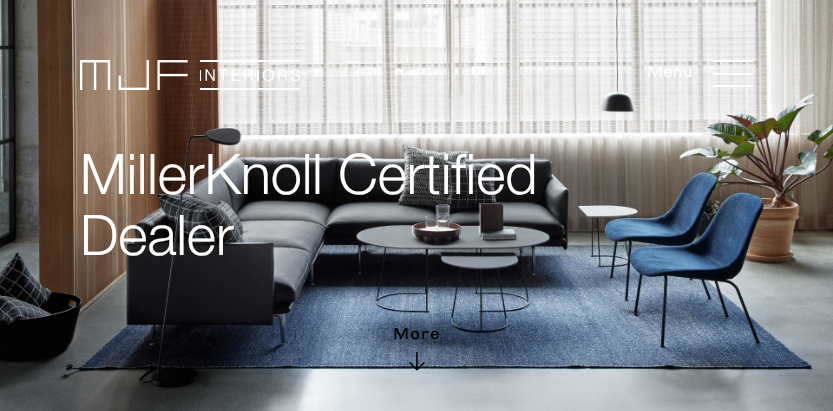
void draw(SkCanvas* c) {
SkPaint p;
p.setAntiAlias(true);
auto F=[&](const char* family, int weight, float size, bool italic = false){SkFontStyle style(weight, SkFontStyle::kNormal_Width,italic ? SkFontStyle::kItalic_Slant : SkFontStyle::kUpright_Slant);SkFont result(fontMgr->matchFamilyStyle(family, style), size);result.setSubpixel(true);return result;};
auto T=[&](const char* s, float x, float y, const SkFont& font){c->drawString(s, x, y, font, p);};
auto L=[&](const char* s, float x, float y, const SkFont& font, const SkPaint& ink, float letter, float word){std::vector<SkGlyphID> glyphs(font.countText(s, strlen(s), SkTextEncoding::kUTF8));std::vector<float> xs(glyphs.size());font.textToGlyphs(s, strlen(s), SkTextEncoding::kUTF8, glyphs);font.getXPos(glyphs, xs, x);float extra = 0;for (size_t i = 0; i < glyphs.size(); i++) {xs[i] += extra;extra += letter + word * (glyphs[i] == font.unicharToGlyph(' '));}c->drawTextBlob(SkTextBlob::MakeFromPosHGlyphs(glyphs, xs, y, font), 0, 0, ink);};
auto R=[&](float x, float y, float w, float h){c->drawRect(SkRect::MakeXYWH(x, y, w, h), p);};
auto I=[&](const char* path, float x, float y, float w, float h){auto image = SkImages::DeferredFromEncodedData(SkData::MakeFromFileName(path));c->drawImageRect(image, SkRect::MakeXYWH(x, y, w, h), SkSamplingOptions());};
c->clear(0xffffffff);
I("2.png",0,0,833,411);
I("1.png",80,60,220,30);
auto f1 = F("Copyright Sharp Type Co",400,17.5);
p.setColor(0xffffffff);
T("Menu",647,77,f1);
R(713,60,40,2);
R(713,73,40,2);
R(713,85,40,2);
auto f2 = F("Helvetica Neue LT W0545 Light",300,56);
T("MillerKnoll Certified",80,194,f2);
T("Dealer",80,255,f2);
p.setColor(0xff000000);
L("More",393,339,f1,p,1,0);
I("3.png",409,352,16,19);
}
